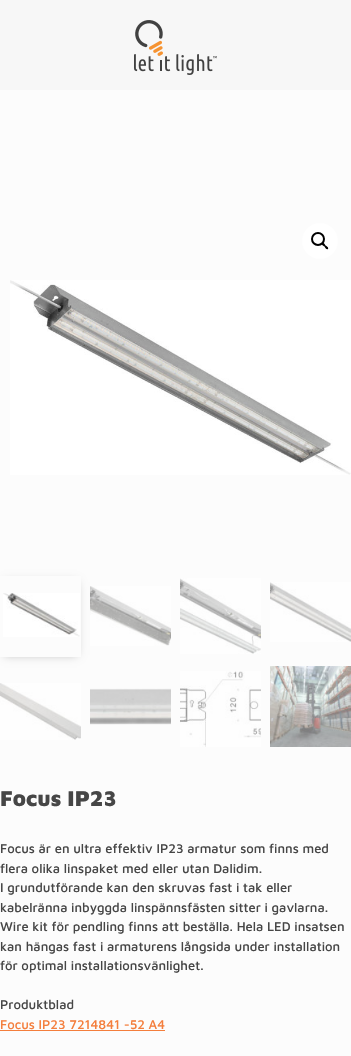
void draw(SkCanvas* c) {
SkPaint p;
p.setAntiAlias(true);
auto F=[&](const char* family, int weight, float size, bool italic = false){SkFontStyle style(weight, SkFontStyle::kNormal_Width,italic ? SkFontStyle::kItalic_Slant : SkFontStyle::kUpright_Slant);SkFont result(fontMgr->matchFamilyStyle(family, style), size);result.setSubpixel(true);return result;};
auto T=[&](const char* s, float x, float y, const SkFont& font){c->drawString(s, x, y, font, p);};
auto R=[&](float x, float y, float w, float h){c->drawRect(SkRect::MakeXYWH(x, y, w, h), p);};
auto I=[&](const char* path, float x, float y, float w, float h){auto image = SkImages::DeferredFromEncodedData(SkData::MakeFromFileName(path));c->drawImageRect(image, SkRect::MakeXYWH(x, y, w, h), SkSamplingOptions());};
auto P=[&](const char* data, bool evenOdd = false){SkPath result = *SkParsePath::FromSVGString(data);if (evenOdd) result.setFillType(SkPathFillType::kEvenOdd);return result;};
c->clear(0xfffcfcfc);
p.setColor(0xfff7f7f7);
R(0,0,351,90);
I("1.png",134,20,83,55);
p.setColor(0xffffffff);
c->drawCircle(320,241,18,p);
p.setStroke(true);
p.setStrokeWidth(2);
p.setColor(0xff000000);
c->drawCircle(318,239,6,p);
p.setStroke(false);
c->drawPath(P("M322 243c1.5-1 3 1.5 3.5 2.5c1 .5 3.5 2 2.5 3.5c-1.5 1-3-1.5-3.5-2.5c-1-.5-3.5-2-2.5-3.5z"),p);
I("2.png",10,280,341,195);
c->save();
c->clipPath(P("M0 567h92v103h-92zm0 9h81v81h-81z",true),true);
p.setColor(0x45000000);
p.setMaskFilter(SkMaskFilter::MakeBlur(kNormal_SkBlurStyle, 4.5));
c->drawRect(SkRect::MakeXYWH(4,582,73,73),p);
p.setMaskFilter(nullptr);
c->restore();
I("3.png",3,593,77,44);
I("4.png",90,586,81,60);
I("5.png",180,578,81,76);
I("6.png",270,582,81,60);
I("7.png",0,683,81,57);
I("8.png",90,688,81,37);
I("9.png",180,671,81,76);
I("10.png",270,666,81,81);
auto f1 = F("Maven Pro",900,22);
p.setColor(0xff464646);
T("Focus IP23",0,806,f1);
auto f2 = F("Maven Pro",500,13);
T("Focus är en ultra effektiv IP23 armatur som finns med",0,853,f2);
T("flera olika linspaket med eller utan Dalidim.",0,873,f2);
T("I grundutförande kan den skruvas fast i tak eller",0,892,f2);
T("kabelränna inbyggda linspännsfästen sitter i gavlarna.",0,912,f2);
T("Wire kit för pendling finns att beställa. Hela LED insatsen",0,931,f2);
T("kan hängas fast i armaturens långsida under installation",0,951,f2);
T("för optimal installationsvänlighet.",0,970,f2);
T("Produktblad",0,1009,f2);
p.setColor(0xfff47e3c);
T("Focus IP23 7214841 -52 A4",0,1029,f2);
R(0,1030,165,1);
}
